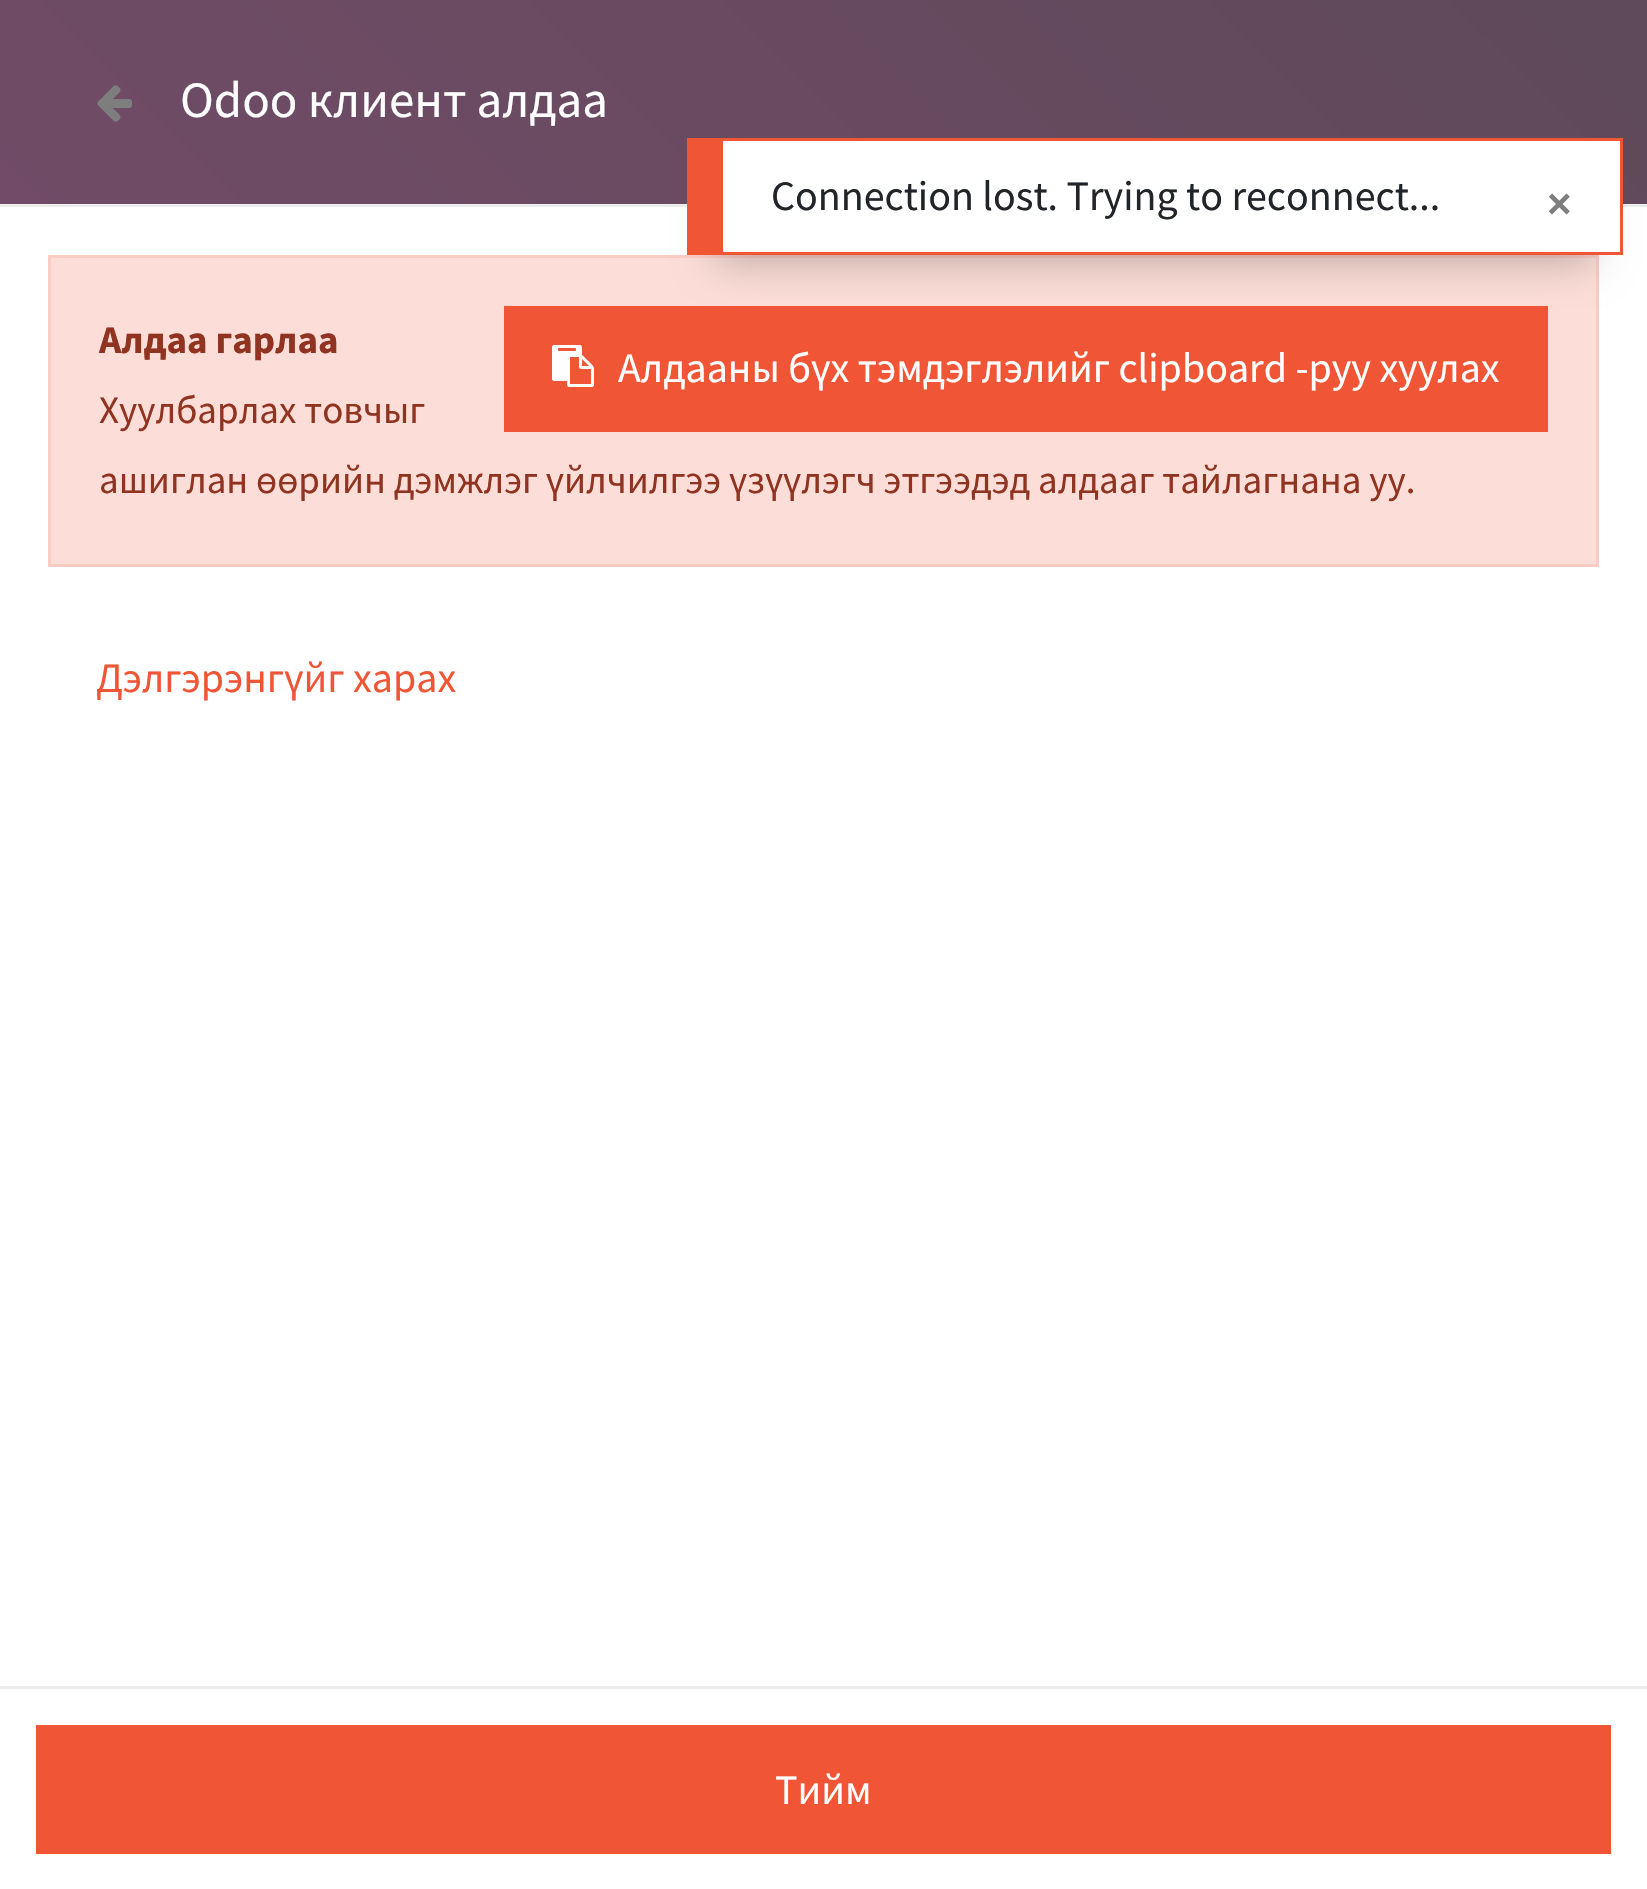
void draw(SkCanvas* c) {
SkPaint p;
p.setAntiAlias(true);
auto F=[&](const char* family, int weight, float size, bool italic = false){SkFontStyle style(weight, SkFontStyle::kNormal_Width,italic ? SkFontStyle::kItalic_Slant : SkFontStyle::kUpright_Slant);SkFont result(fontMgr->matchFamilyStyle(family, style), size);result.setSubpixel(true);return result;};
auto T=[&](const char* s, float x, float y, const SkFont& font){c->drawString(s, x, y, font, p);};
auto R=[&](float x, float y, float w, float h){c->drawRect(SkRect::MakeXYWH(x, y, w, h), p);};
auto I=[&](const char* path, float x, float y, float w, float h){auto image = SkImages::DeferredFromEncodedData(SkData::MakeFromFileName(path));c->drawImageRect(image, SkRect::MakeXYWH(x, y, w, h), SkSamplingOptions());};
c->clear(0xffffffff);
{
const SkColor colors[] = {0xff714b67,0xff5e4a59};
const float stops[] = {0,1};
const SkPoint ends[] = {{361,565}, {1286,-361}};
p.setShader(SkGradientShader::MakeLinear(ends, colors, stops, 2, SkTileMode::kClamp));
p.setAlpha(255);
}
R(0,0,1647,204);
p.setShader(nullptr);
p.setColor(0xffededed);
R(0,204,1647,3);
I("1.png",97,85,35,37);
auto f1 = F("Source Sans Pro",400,51);
p.setColor(0xffffffff);
T("Odoo клиент алдаа",180,117,f1);
p.setColor(0xfffcddd7);
c->drawRect(SkRect::MakeXYWH(49.5,256.5,1548,309),p);
p.setStroke(true);
p.setStrokeWidth(3);
p.setColor(0xfffbccc3);
c->drawRect(SkRect::MakeXYWH(49.5,256.5,1548,309),p);
auto f2 = F("Source Sans Pro",700,39);
p.setStroke(false);
p.setColor(0xff903320);
T("Алдаа гарлаа",99,353,f2);
p.setColor(0xfff05536);
R(504,306,1044,126);
I("2.png",552,345,42,42);
auto f3 = F("Source Sans Pro",400,42);
p.setColor(0xffffffff);
T("Алдааны бүх тэмдэглэлийг clipboard -руу хуулах",618,382,f3);
auto f4 = F("Source Sans Pro",400,39);
p.setColor(0xff903320);
T("Хуулбарлах товчыг",99,423,f4);
T("ашиглан өөрийн дэмжлэг үйлчилгээ үзүүлэгч этгээдэд алдааг тайлагнана уу.",99,493,f4);
p.setColor(0xfff05536);
T("Дэлгэрэнгүйг харах",96,692,f3);
p.setColor(0xffededed);
R(0,1686,1647,3);
p.setColor(0xfff05536);
R(36,1725,1575,129);
p.setColor(0xffffffff);
T("Тийм",775,1804,f3);
p.setColor(0x40000000);
p.setMaskFilter(SkMaskFilter::MakeBlur(kNormal_SkBlurStyle, 21));
c->drawRect(SkRect::MakeXYWH(717,204,876,57),p);
p.setMaskFilter(nullptr);
p.setColor(0xffffffff);
R(723,141,897,111);
p.setColor(0xfff05536);
R(723,138,900,3);
R(1620,138,3,117);
R(723,252,900,3);
R(687,138,36,117);
p.setColor(0xff212529);
T("Connection lost. Trying to reconnect...",771,210,f3);
auto f5 = F("Liberation Sans",700,42);
p.setColor(0xff7e7e7e);
T("×",1547,218,f5);
}
